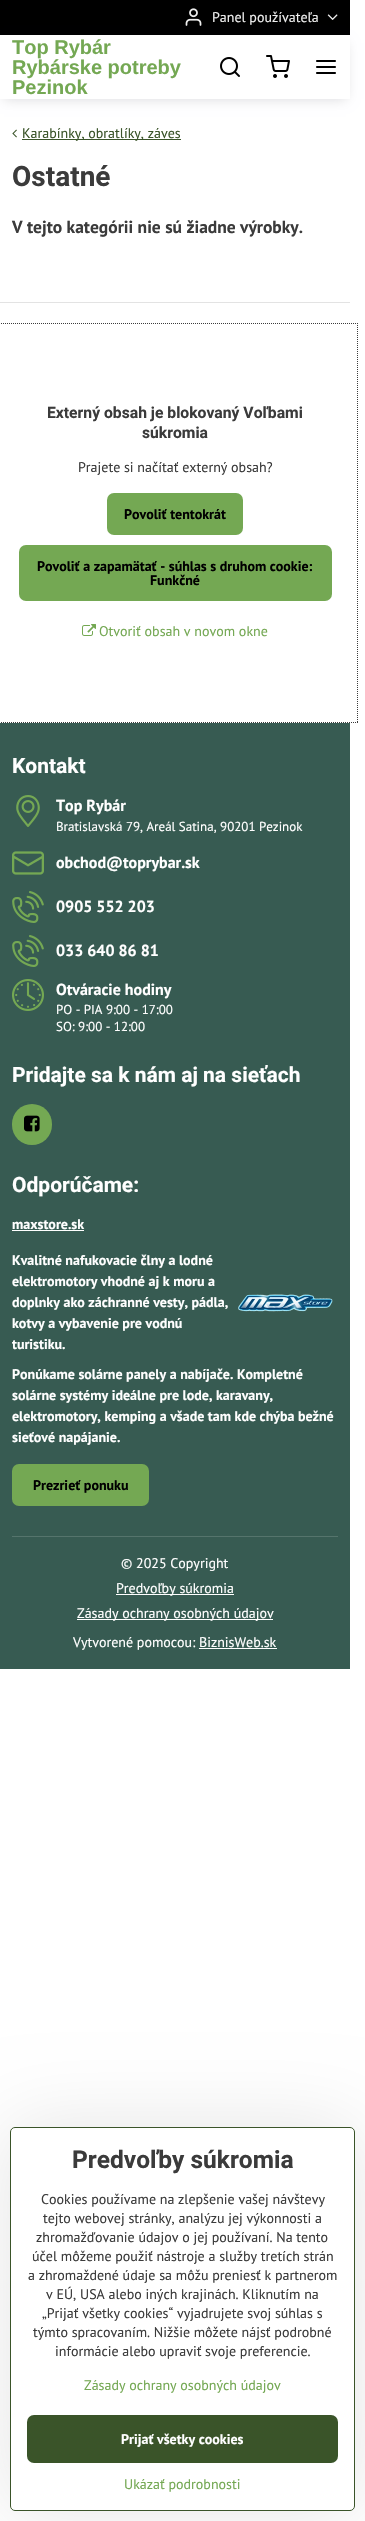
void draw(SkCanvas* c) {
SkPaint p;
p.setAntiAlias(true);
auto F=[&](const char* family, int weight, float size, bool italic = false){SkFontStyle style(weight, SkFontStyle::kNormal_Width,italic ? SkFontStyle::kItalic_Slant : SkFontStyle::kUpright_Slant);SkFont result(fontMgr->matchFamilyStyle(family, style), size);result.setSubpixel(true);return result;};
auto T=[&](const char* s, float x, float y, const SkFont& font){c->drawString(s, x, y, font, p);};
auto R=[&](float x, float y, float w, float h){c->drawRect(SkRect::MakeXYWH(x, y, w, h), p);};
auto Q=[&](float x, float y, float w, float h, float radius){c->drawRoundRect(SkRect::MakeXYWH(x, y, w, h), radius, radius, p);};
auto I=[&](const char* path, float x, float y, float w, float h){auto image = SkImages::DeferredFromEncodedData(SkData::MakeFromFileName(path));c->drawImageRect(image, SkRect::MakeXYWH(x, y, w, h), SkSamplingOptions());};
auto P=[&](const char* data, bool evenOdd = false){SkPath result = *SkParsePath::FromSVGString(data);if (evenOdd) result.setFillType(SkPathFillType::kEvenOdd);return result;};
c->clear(0xffffffff);
p.setColor(0xff000000);
R(0,0,350,35);
I("1.png",185,8,17,18);
auto f1 = F("PT Sans",400,14);
p.setColor(0xffeeeeee);
T("Panel používateľa",212,22,f1);
I("2.png",327,14,11,6);
c->save();
c->clipPath(P("M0 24h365v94h-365zm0 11h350v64h-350z",true),true);
p.setColor(0x26000014);
p.setMaskFilter(SkMaskFilter::MakeBlur(kNormal_SkBlurStyle, 6));
c->drawRect(SkRect::MakeXYWH(4,43,342,56),p);
p.setMaskFilter(nullptr);
c->restore();
auto f2 = F("Liberation Sans",700,20);
p.setColor(0xff74a853);
T("Top Rybár",12,54,f2);
T("Rybárske potreby",12,74,f2);
T("Pezinok",12,94,f2);
I("3.png",220,57,20,20);
I("4.png",266,55,24,23);
I("5.png",316,60,20,14);
I("6.png",12,129,5,9);
p.setColor(0xff3a5429);
R(22,139,159,1);
T("Karabínky, obratlíky, záves",22,138,f1);
auto f3 = F("Roboto",700,28);
p.setColor(0xff3b3b3b);
T("Ostatné",12,186,f3);
auto f4 = F("PT Sans",700,17.5);
T("V tejto kategórii nie sú žiadne výrobky.",12,233,f4);
p.setColor(0xffe3e3e3);
R(0,302,350,1);
p.setStroke(true);
p.setStrokeWidth(1);
p.setColor(0xff3b3b3b);
p.setPathEffect(SkDashPathEffect::Make({{1,1}}, 0));
c->drawPath(P("M-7 323.5h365"),p);
p.setPathEffect(nullptr);
p.setPathEffect(SkDashPathEffect::Make({{1,1}}, 0));
c->drawPath(P("M357.5 323v400"),p);
p.setPathEffect(nullptr);
p.setPathEffect(SkDashPathEffect::Make({{1,1}}, 0));
c->drawPath(P("M-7 722.5h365"),p);
p.setPathEffect(nullptr);
auto f5 = F("Roboto",700,15.7);
p.setStroke(false);
T("Externý obsah je blokovaný Voľbami",47,418,f5);
T("súkromia",142,438,f5);
T("Prajete si načítať externý obsah?",78,472,f1);
p.setColor(0xff74a853);
Q(107,493,136,42,7);
auto f6 = F("PT Sans",700,14);
p.setColor(0xff000000);
T("Povoliť tentokrát",124,519,f6);
p.setColor(0xff74a853);
Q(19,545,313,56,7);
p.setColor(0xff000000);
T("Povoliť a zapamätať - súhlas s druhom cookie:",37,571,f6);
T("Funkčné",150,585,f6);
I("7.png",82,624,14,12);
p.setColor(0xff74a853);
T("Otvoriť obsah v novom okne",99,636,f1);
p.setColor(0xff375b52);
R(0,723,350,946);
auto f7 = F("Roboto",700,21);
p.setColor(0xffffffff);
T("Kontakt",12,773,f7);
I("8.png",16,795,24,32);
auto f8 = F("PT Sans",700,16);
T("Top Rybár",56,811,f8);
auto f9 = F("PT Sans",400,13);
T("Bratislavská 79, Areál Satina, 90201 Pezinok",56,831,f9);
I("9.png",12,851,32,24);
T("obchod@toprybar.sk",56,868,f8);
I("10.png",12,891,32,32);
T("0905 552 203",56,912,f8);
I("10.png",12,935,32,32);
T("033 640 86 81",56,956,f8);
I("11.png",12,979,32,32);
T("Otváracie hodiny",56,995,f8);
T("PO - PIA 9:00 - 17:00",56,1014,f9);
T("SO: 9:00 - 12:00",56,1031,f9);
T("Pridajte sa k nám aj na sieťach",12,1082,f7);
p.setColor(0xff74a853);
Q(12,1104,40,41,20);
I("12.png",24,1115,16,17);
p.setColor(0xffffffff);
T("Odporúčame:",12,1192,f7);
T("maxstore.sk",12,1229,f6);
R(12,1230,72,1);
T("Kvalitné nafukovacie člny a lodné",12,1265,f6);
T("elektromotory vhodné aj k moru a",12,1286,f6);
T("doplnky ako záchranné vesty, pádla,",12,1307,f6);
T("kotvy a vybavenie pre vodnú",12,1328,f6);
T("turistiku.",12,1349,f6);
I("13.png",238,1294,95,18);
T("Ponúkame solárne panely a nabíjače. Kompletné",12,1379,f6);
T("solárne systémy ideálne pre lode, karavany,",12,1400,f6);
T("elektromotory, kemping a všade tam kde chýba bežné",12,1421,f6);
T("sieťové napájanie.",12,1442,f6);
p.setColor(0xff74a853);
Q(12,1464,137,42,7);
p.setColor(0xff000000);
T("Prezrieť ponuku",33,1490,f6);
p.setColor(0xff55746c);
R(12,1536,326,1);
p.setColor(0xffffffff);
T("© 2025 Copyright",121,1568,f1);
R(116,1594,118,1);
T("Predvoľby súkromia",116,1593,f1);
R(77,1619,196,1);
T("Zásady ochrany osobných údajov",77,1618,f1);
T("Vytvorené pomocou: BiznisWeb.sk",73,1647,f1);
R(199,1648,78,1);
c->save();
c->clipPath(P("M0 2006h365v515h-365zm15 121h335c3 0 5 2 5 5v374c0 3-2 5-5 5h-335c-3 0-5-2-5-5v-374c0-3 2-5 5-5z",true),true);
p.setColor(0x1a000000);
p.setMaskFilter(SkMaskFilter::MakeBlur(kNormal_SkBlurStyle, 40));
c->drawRoundRect(SkRect::MakeXYWH(10,2127,345,384),5,5,p);
p.setMaskFilter(nullptr);
c->restore();
p.setStroke(true);
p.setColor(0xff3a5429);
c->drawRoundRect(SkRect::MakeXYWH(10.5,2127.5,344,383),4.5,4.5,p);
auto f10 = F("Roboto",700,24.5);
p.setStroke(false);
p.setColor(0xff3b3b3b);
T("Predvoľby súkromia",72,2168,f10);
T("Cookies používame na zlepšenie vašej návštevy",41,2204,f1);
T("tejto webovej stránky, analýzu jej výkonnosti a",43,2223,f1);
T("zhromažďovanie údajov o jej používaní. Na tento",36,2242,f1);
T("účel môžeme použiť nástroje a služby tretích strán",32,2261,f1);
T("a zhromaždené údaje sa môžu preniesť k partnerom",28,2280,f1);
T("v EÚ, USA alebo iných krajinách. Kliknutím na",46,2299,f1);
T("„Prijať všetky cookies“ vyjadrujete svoj súhlas s",42,2318,f1);
T("týmto spracovaním. Nižšie môžete nájsť podrobné",33,2337,f1);
T("informácie alebo upraviť svoje preferencie.",55,2356,f1);
p.setColor(0xff74a853);
T("Zásady ochrany osobných údajov",84,2390,f1);
p.setColor(0xff3a5429);
Q(27,2415,311,48,7);
p.setColor(0xffffffff);
T("Prijať všetky cookies",121,2444,f6);
p.setColor(0xff74a853);
T("Ukázať podrobnosti",124,2489,f1);
}
